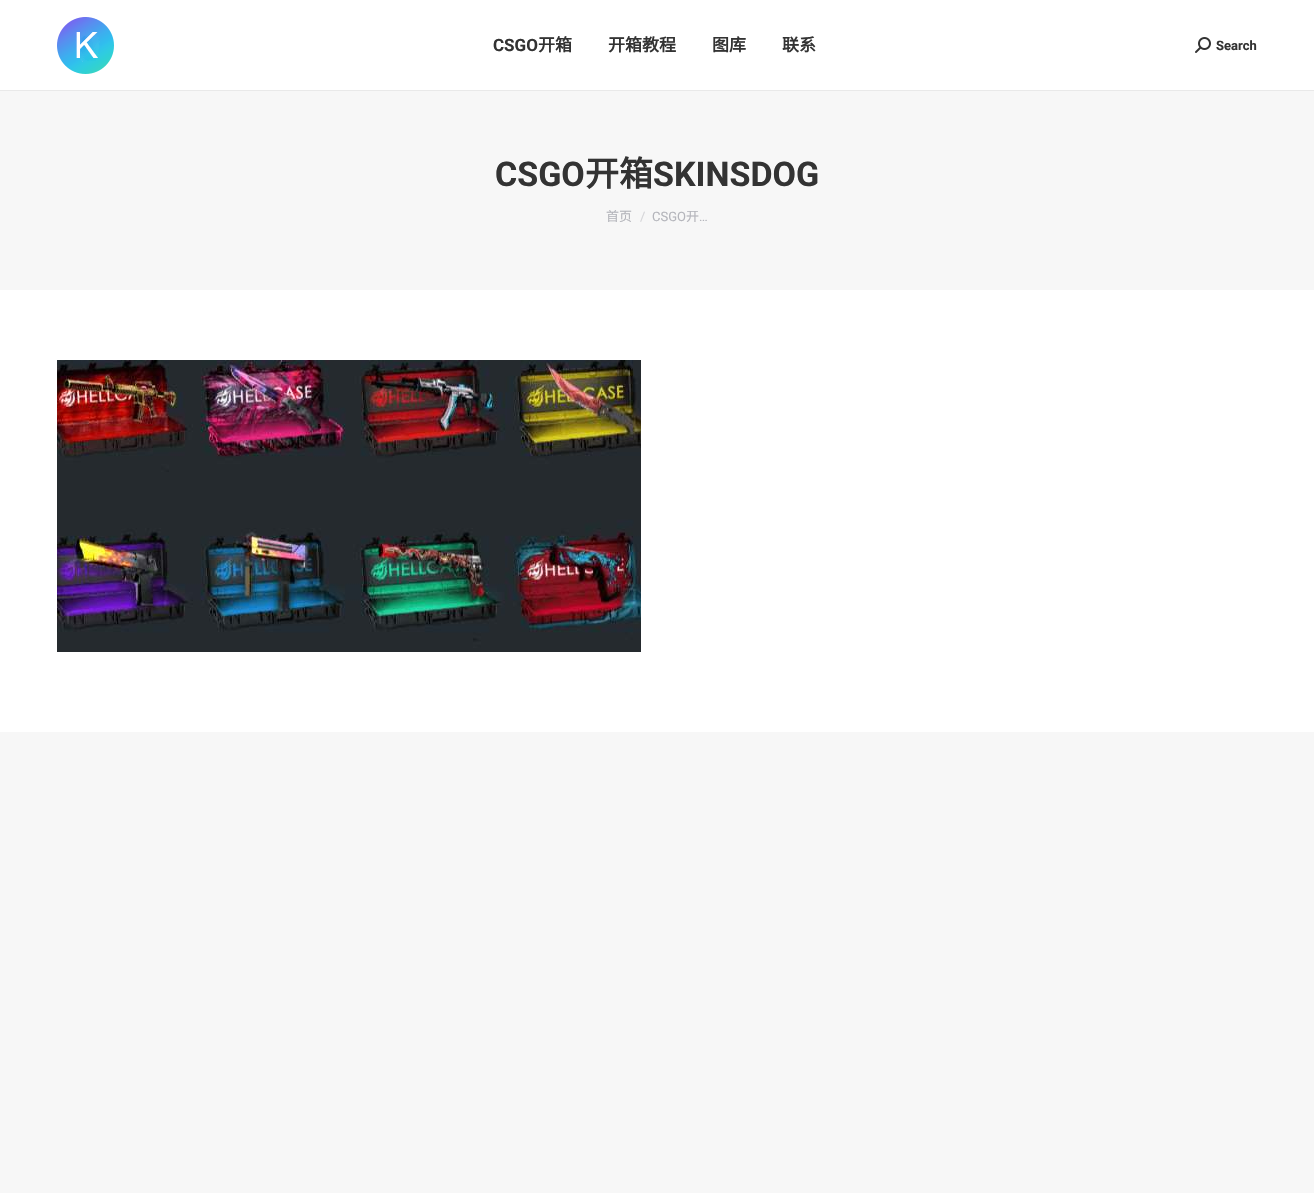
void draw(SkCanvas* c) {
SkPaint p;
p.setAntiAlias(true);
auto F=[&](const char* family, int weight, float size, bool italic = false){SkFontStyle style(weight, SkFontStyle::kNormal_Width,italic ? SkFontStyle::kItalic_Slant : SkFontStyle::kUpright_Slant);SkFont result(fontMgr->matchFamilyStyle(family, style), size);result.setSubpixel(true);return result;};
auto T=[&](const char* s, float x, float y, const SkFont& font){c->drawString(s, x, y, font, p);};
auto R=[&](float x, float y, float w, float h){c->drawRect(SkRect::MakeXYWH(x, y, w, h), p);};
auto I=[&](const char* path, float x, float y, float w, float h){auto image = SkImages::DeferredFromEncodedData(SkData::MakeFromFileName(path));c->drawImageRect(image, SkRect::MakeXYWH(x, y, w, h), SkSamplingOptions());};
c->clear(0xfff7f7f7);
p.setColor(0xffffffff);
R(0,290,1314,442);
R(0,0,1314,90);
p.setColor(0xffe9e9e9);
R(0,90,1314,1);
I("1.png",57,17,57,57);
auto f1 = F("Roboto",700,17);
p.setColor(0xff333333);
T("CSGO",493,51,f1);
auto f2 = F("Noto Sans CJK SC",700,17);
T("开箱",538,51,f2);
T("开箱教程",608,51,f2);
T("图库",712,51,f2);
T("联系",782,51,f2);
I("2.png",1195,37,16,16);
auto f3 = F("Roboto",700,13);
T("Search",1216,50,f3);
auto f4 = F("Roboto",700,34);
T("CSGO",495,186,f4);
auto f5 = F("Noto Sans CJK SC",700,34);
T("开箱",585,186,f5);
T("SKINSDOG",653,186,f4);
auto f6 = F("Noto Sans CJK SC",400,13);
p.setColor(0xffb4b5bb);
T("首页",606,221,f6);
auto f7 = F("Roboto",400,13);
p.setColor(0xffd6d6d9);
T("/",640,221,f7);
p.setColor(0xffb4b5bb);
T("CSGO",652,221,f7);
T("开",686,221,f6);
T("…",699,221,f7);
I("3.png",57,360,584,292);
}
